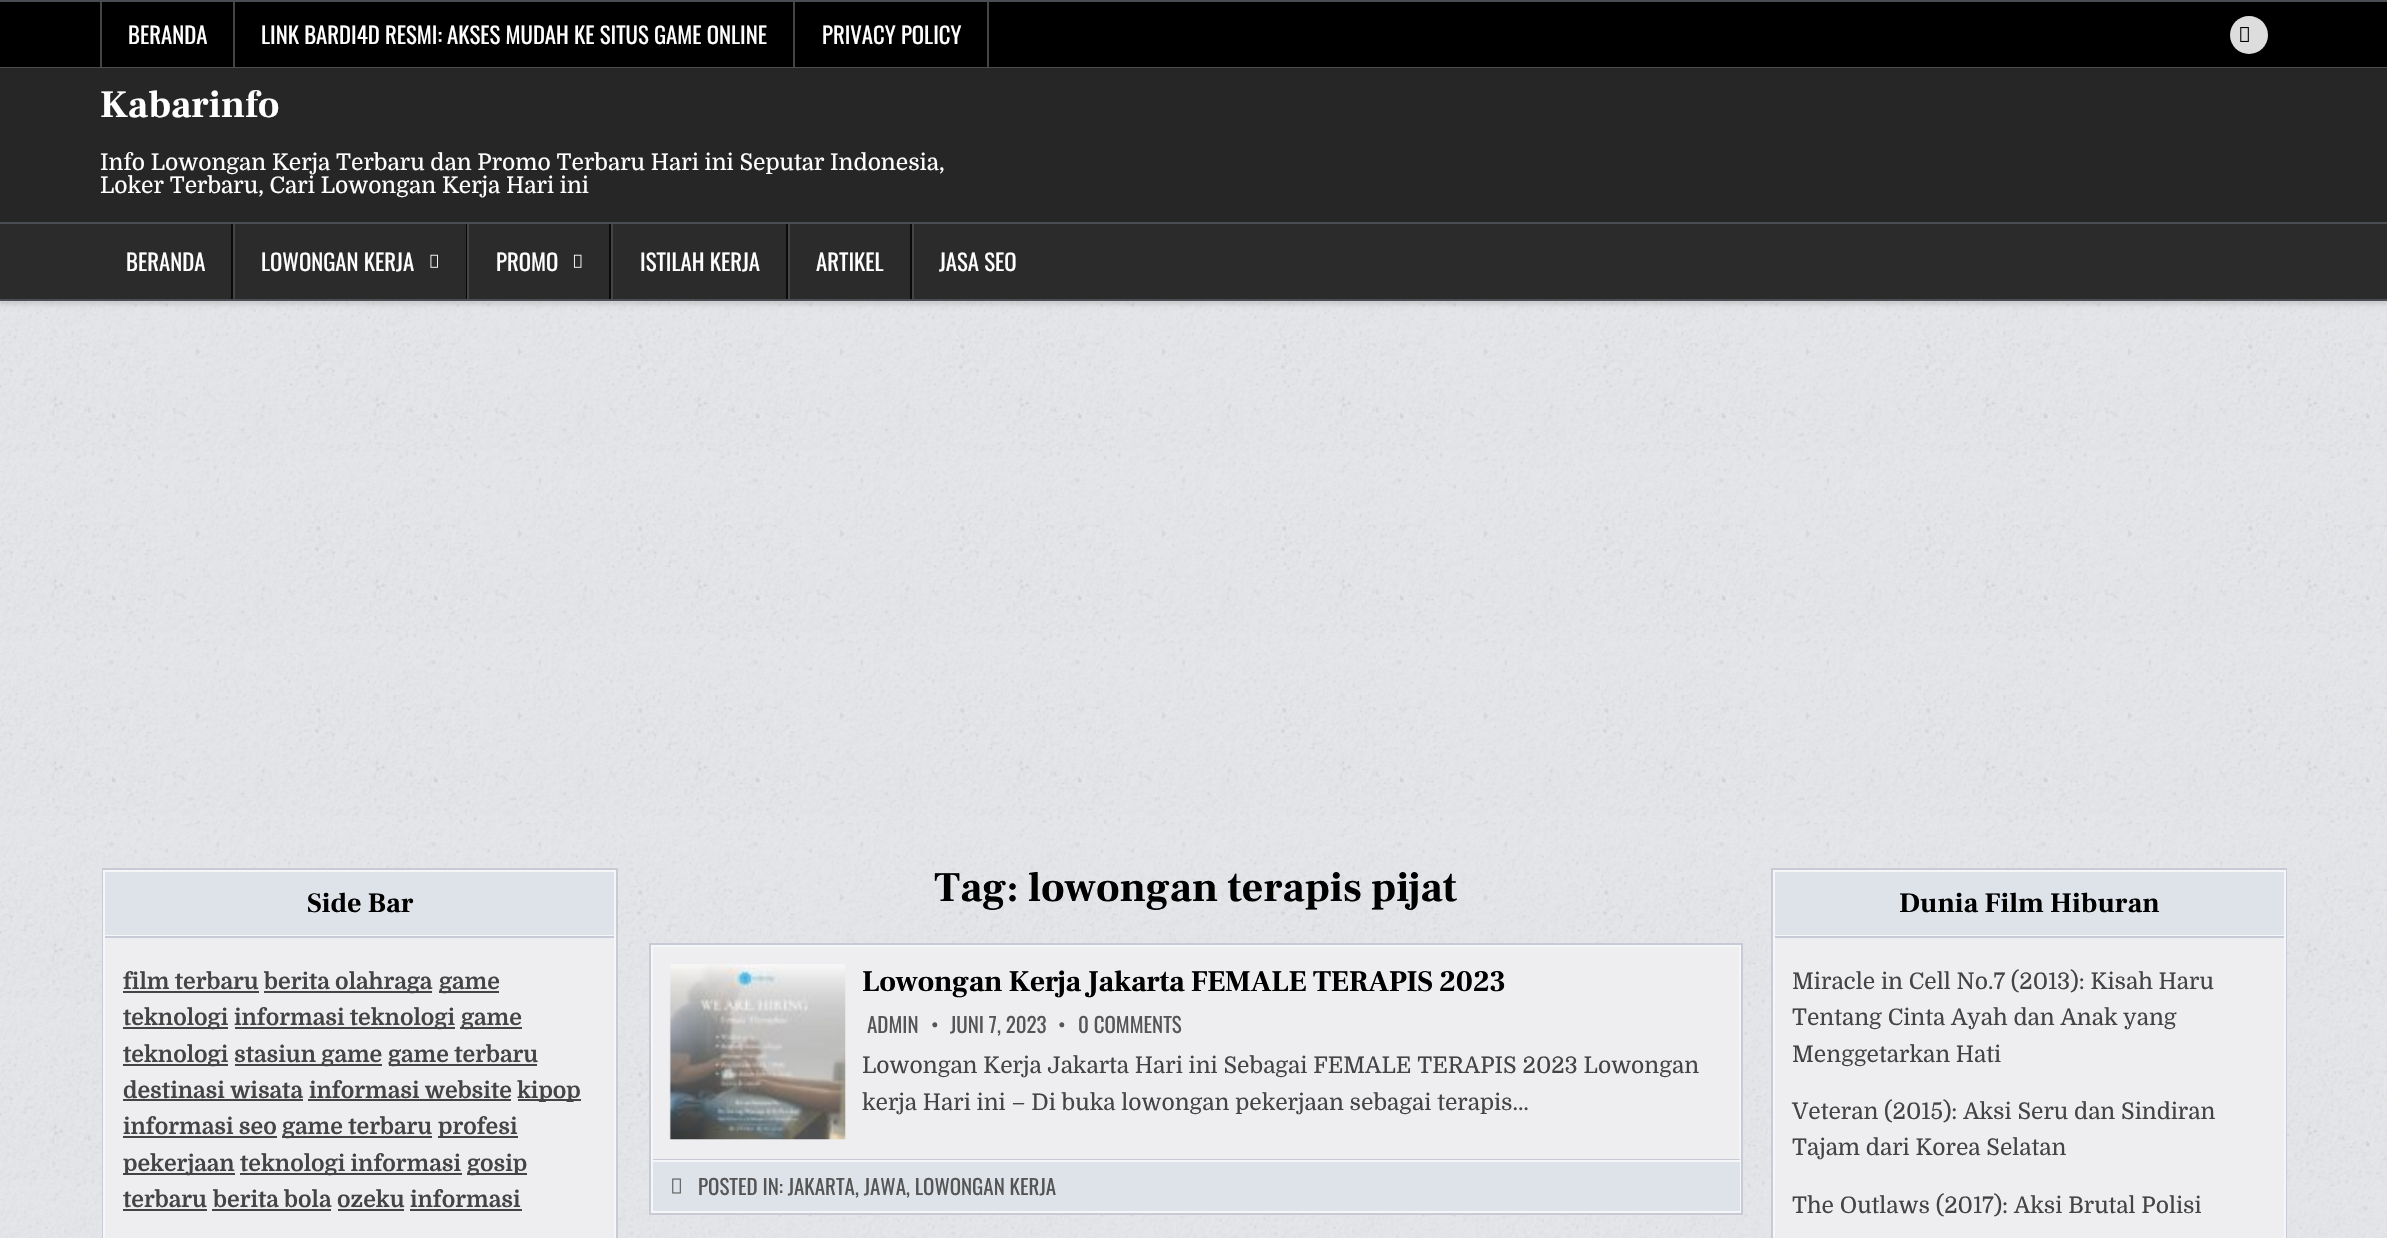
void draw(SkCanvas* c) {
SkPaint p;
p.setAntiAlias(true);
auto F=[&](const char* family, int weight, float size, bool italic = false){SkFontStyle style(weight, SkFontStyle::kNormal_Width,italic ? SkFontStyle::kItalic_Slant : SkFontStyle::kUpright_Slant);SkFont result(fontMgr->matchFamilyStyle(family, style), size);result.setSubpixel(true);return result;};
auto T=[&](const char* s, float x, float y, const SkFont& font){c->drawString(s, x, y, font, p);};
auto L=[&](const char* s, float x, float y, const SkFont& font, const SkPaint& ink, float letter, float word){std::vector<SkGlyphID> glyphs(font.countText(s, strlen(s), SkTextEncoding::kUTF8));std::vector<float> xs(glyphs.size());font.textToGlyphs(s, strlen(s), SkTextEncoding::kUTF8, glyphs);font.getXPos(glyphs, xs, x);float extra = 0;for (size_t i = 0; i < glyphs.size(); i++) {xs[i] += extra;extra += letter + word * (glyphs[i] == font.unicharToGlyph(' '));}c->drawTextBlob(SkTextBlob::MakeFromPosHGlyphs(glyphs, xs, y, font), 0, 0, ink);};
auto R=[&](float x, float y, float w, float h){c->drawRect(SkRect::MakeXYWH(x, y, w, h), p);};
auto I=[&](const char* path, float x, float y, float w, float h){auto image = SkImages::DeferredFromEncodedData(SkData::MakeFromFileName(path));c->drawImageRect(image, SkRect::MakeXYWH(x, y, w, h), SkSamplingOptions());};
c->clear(0xffe4e6e9);
I("1.png",0,301,2387,937);
p.setColor(0xff000000);
R(0,2,2387,65);
p.setColor(0xff4a4e53);
R(0,0,2387,2);
R(0,67,2387,1);
p.setColor(0xff444444);
R(233,2,2,65);
R(100,2,2,65);
auto f1 = F("Oswald",400,22.75);
p.setColor(0xffffffff);
T("BERANDA",128,44,f1);
p.setColor(0xff444444);
R(793,2,2,65);
p.setColor(0xffffffff);
T("LINK BARDI4D RESMI: AKSES MUDAH KE SITUS GAME ONLINE",261,44,f1);
p.setColor(0xff444444);
R(987,2,2,65);
p.setColor(0xffffffff);
T("PRIVACY POLICY",822,44,f1);
p.setColor(0xffdddddd);
c->drawCircle(2249,35,19,p);
I("2.png",2240,27,9,15);
p.setColor(0x1a000000);
p.setMaskFilter(SkMaskFilter::MakeBlur(kNormal_SkBlurStyle, 2));
c->drawRect(SkRect::MakeXYWH(0,226,2387,79),p);
p.setMaskFilter(nullptr);
p.setColor(0xff262626);
R(0,68,2387,154);
auto f2 = F("Frank Ruhl Libre",700,38.5);
p.setColor(0xffffffff);
T("Kabarinfo",100,117,f2);
auto f3 = F("Domine",400,22.75);
T("Info Lowongan Kerja Terbaru dan Promo Terbaru Hari ini Seputar Indonesia,",100,170,f3);
T("Loker Terbaru, Cari Lowongan Kerja Hari ini",100,193,f3);
p.setColor(0xff2b2b2b);
R(0,224,2387,75);
p.setColor(0xff4a4e53);
R(0,222,2387,2);
R(0,299,2387,2);
p.setColor(0xff090909);
R(231,224,2,75);
p.setColor(0xffffffff);
T("BERANDA",126,271,f1);
p.setColor(0xff090909);
R(466,224,1,75);
p.setColor(0xff444444);
R(233,224,2,75);
p.setColor(0xffffffff);
T("LOWONGAN KERJA",261,271,f1);
I("3.png",430,254,8,14);
p.setColor(0xff090909);
R(609,224,2,75);
p.setColor(0xff444444);
R(467,224,2,75);
p.setColor(0xffffffff);
T("PROMO",496,271,f1);
I("4.png",573,254,9,14);
p.setColor(0xff090909);
R(786,224,2,75);
p.setColor(0xff444444);
R(611,224,2,75);
p.setColor(0xffffffff);
T("ISTILAH KERJA",640,271,f1);
p.setColor(0xff090909);
R(910,224,2,75);
p.setColor(0xff444444);
R(788,224,2,75);
p.setColor(0xffffffff);
T("ARTIKEL",816,271,f1);
p.setColor(0xff444444);
R(912,224,2,75);
p.setColor(0xffffffff);
T("JASA SEO",939,271,f1);
p.setColor(0xffeeedf0);
R(105,938,509,300);
p.setStroke(true);
p.setStrokeWidth(2);
p.setColor(0xffc8cbd6);
c->drawRect(SkRect::MakeXYWH(103,869,514,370),p);
p.setColor(0xfff5f6f7);
c->drawRect(SkRect::MakeXYWH(104,871,511,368),p);
p.setStroke(false);
p.setColor(0xffdee2e9);
R(105,872,509,63);
p.setColor(0xffc8cbd6);
R(105,936,509,2);
p.setColor(0xfff5f6f7);
R(105,935,509,1);
auto f4 = F("Frank Ruhl Libre",700,28);
p.setColor(0xff000000);
T("Side Bar",307,912,f4);
auto f5 = F("Domine",700,22.75);
p.setColor(0xff444444);
T("film terbaru",123,989,f5);
R(123,991,136,2);
R(264,991,168,2);
T("berita olahraga",264,989,f5);
R(439,991,60,2);
T("game",439,989,f5);
R(123,1027,105,2);
T("teknologi",123,1025,f5);
R(235,1027,220,2);
T("informasi teknologi",234,1025,f5);
R(460,1027,62,2);
T("game",461,1025,f5);
R(123,1064,105,2);
T("teknologi",123,1062,f5);
R(235,1064,147,2);
T("stasiun game",234,1062,f5);
R(389,1064,148,2);
T("game terbaru",388,1062,f5);
T("destinasi wisata",123,1098,f5);
R(123,1099,180,2);
T("informasi website",309,1098,f5);
R(308,1099,203,2);
R(518,1099,63,2);
T("kipop",517,1098,f5);
T("informasi seo",123,1134,f5);
R(123,1136,154,2);
R(282,1136,150,2);
T("game terbaru",282,1134,f5);
R(438,1136,80,2);
T("profesi",438,1134,f5);
R(123,1173,112,2);
T("pekerjaan",123,1171,f5);
R(240,1173,222,2);
T("teknologi informasi",240,1171,f5);
R(467,1173,60,2);
T("gosip",467,1171,f5);
T("terbaru",123,1207,f5);
R(123,1209,84,2);
T("berita bola",213,1207,f5);
R(212,1209,119,2);
T("ozeku",337,1207,f5);
R(338,1209,66,2);
T("informasi",410,1207,f5);
R(410,1209,112,2);
auto f6 = F("Frank Ruhl Libre",700,42);
p.setColor(0xff000000);
T("Tag: lowongan terapis pijat",934,901,f6);
p.setColor(0xffeeedf0);
R(653,947,1086,212);
p.setStroke(true);
p.setColor(0xfff5f6f7);
c->drawRect(SkRect::MakeXYWH(652,946,1088,266),p);
p.setColor(0xffc8cbd6);
c->drawRect(SkRect::MakeXYWH(650,944,1092,270),p);
I("5.png",669,964,177,176);
auto f7 = F("Frank Ruhl Libre",700,29.75);
p.setStroke(false);
p.setColor(0xff000000);
L("Lowongan Kerja Jakarta FEMALE TERAPIS 2023",862,991,f7,p,-.35,0);
auto f8 = F("Oswald",400,21);
p.setColor(0xff555555);
T("ADMIN",867,1033,f8);
T("•",931,1033,f8);
T("JUNI 7, 2023",950,1033,f8);
T("•",1058,1033,f8);
T("0 COMMENTS",1078,1033,f8);
p.setColor(0xff444444);
T("Lowongan Kerja Jakarta Hari ini Sebagai FEMALE TERAPIS 2023 Lowongan",862,1073,f3);
T("kerja Hari ini – Di buka lowongan pekerjaan sebagai terapis…",862,1110,f3);
p.setColor(0xffdee2e9);
R(653,1162,1087,49);
p.setColor(0xffc8cbd6);
R(653,1159,1087,1);
p.setColor(0xfff5f6f7);
R(653,1160,1087,2);
I("6.png",672,1178,9,16);
p.setColor(0xff555555);
T("POSTED IN: JAKARTA, JAWA, LOWONGAN KERJA",698,1195,f8);
p.setColor(0xffeeedf0);
R(1775,938,509,300);
p.setStroke(true);
p.setColor(0xffc8cbd6);
c->drawRect(SkRect::MakeXYWH(1772,869,514,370),p);
p.setColor(0xfff5f6f7);
c->drawRect(SkRect::MakeXYWH(1774,871,511,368),p);
p.setStroke(false);
p.setColor(0xffdee2e9);
R(1775,872,509,63);
p.setColor(0xffc8cbd6);
R(1775,936,509,2);
p.setColor(0xfff5f6f7);
R(1775,935,509,1);
p.setColor(0xff000000);
T("Dunia Film Hiburan",1899,912,f4);
p.setColor(0xff444444);
T("Miracle in Cell No.7 (2013): Kisah Haru",1792,989,f3);
T("Tentang Cinta Ayah dan Anak yang",1792,1025,f3);
T("Menggetarkan Hati",1792,1062,f3);
T("Veteran (2015): Aksi Seru dan Sindiran",1792,1119,f3);
T("Tajam dari Korea Selatan",1792,1155,f3);
T("The Outlaws (2017): Aksi Brutal Polisi",1792,1213,f3);
}
